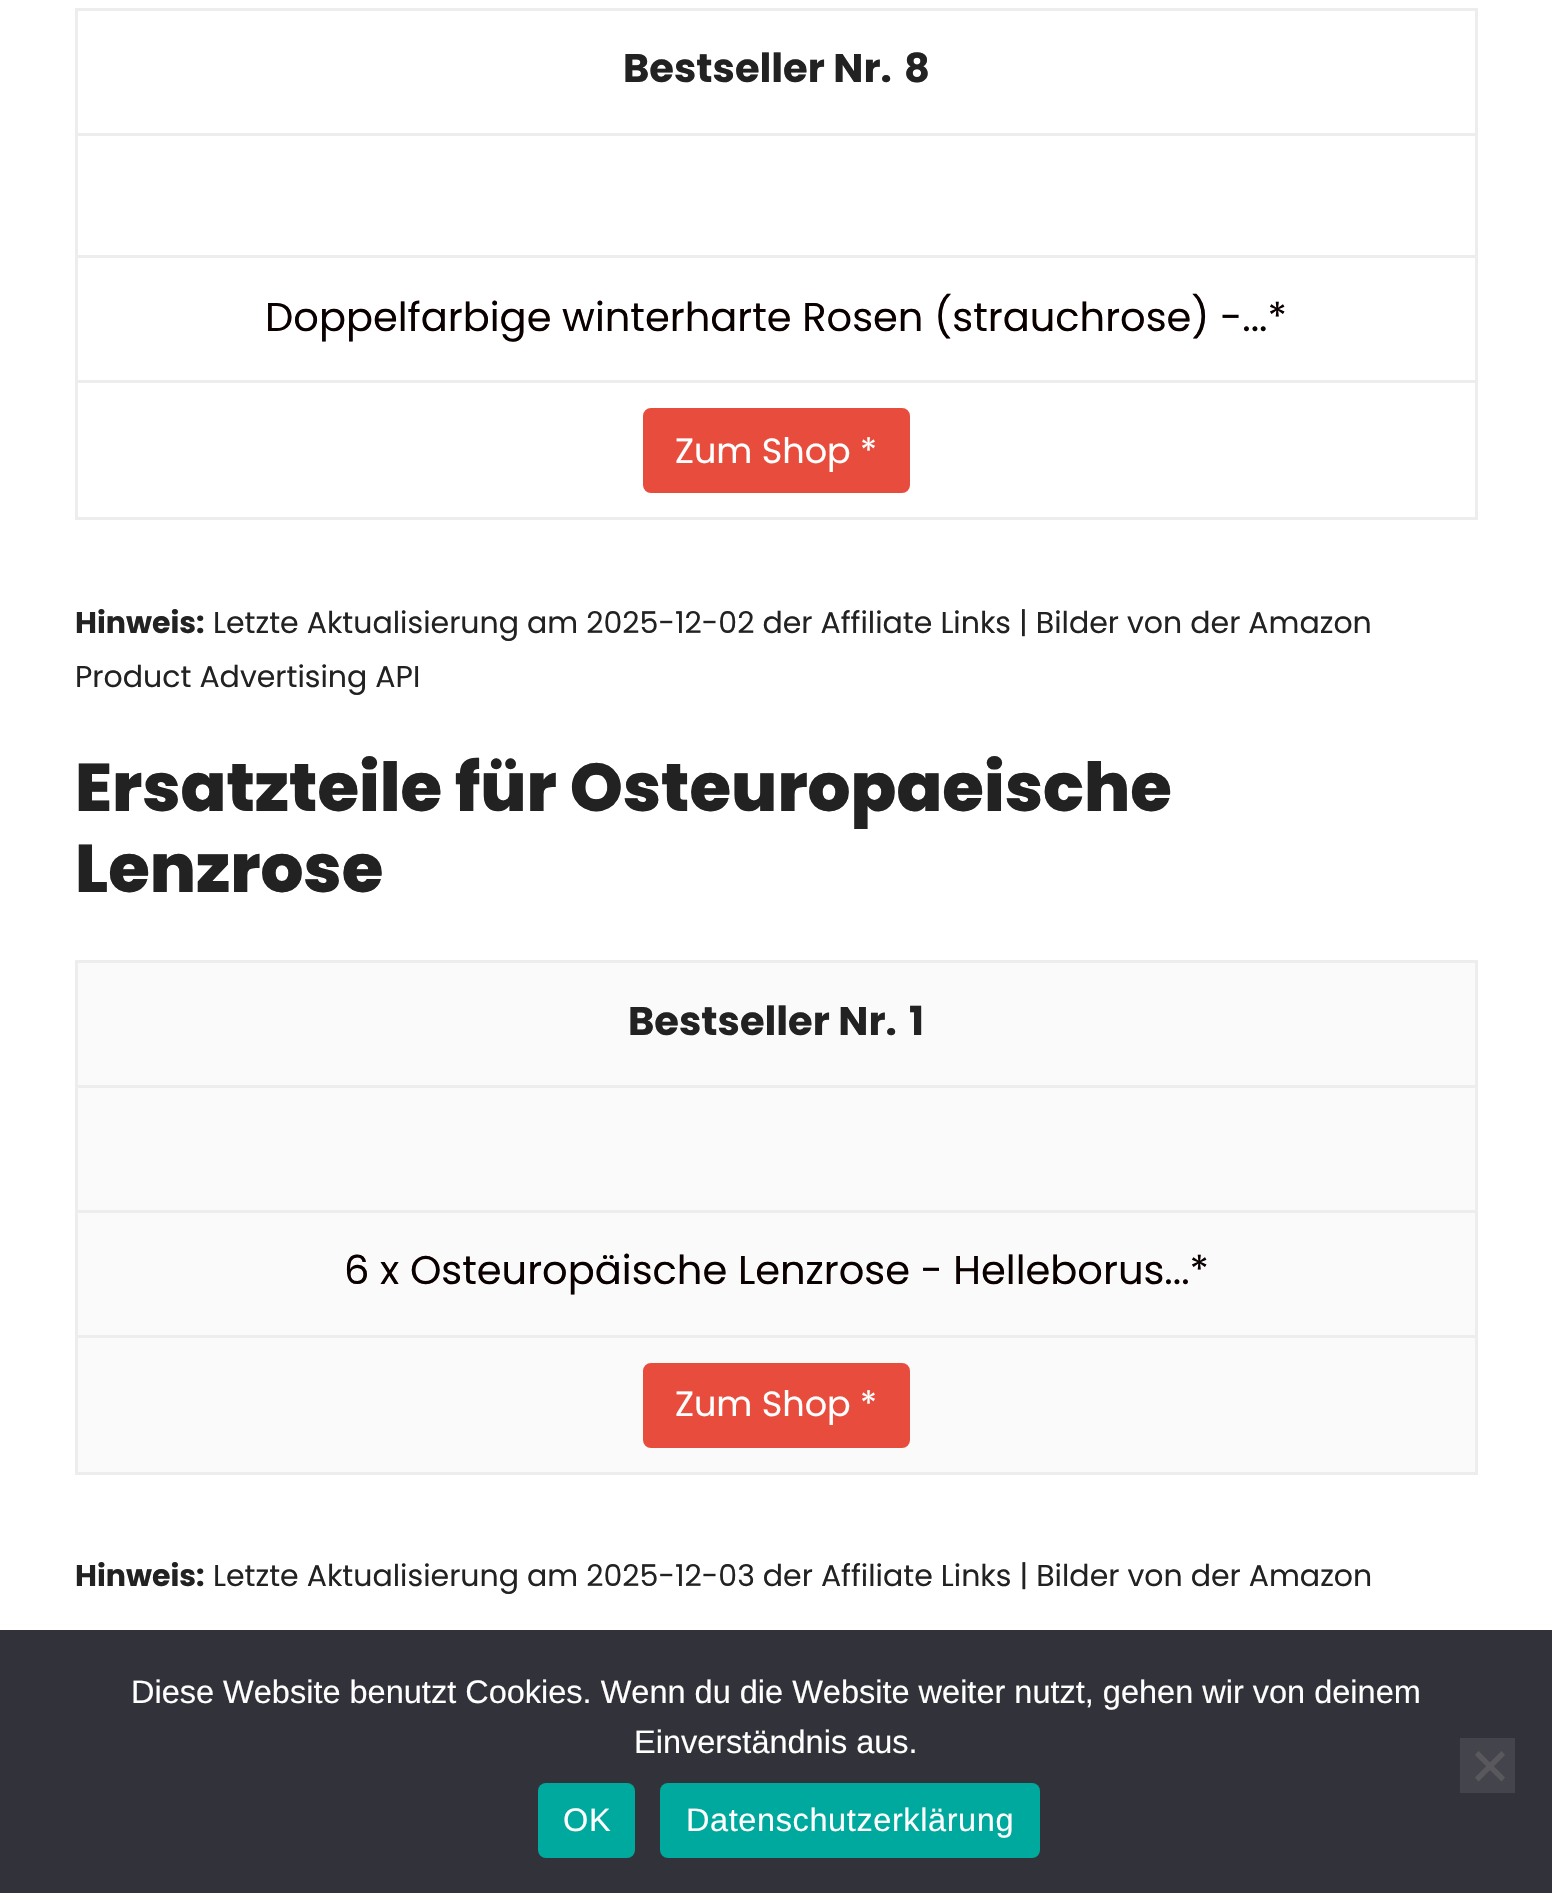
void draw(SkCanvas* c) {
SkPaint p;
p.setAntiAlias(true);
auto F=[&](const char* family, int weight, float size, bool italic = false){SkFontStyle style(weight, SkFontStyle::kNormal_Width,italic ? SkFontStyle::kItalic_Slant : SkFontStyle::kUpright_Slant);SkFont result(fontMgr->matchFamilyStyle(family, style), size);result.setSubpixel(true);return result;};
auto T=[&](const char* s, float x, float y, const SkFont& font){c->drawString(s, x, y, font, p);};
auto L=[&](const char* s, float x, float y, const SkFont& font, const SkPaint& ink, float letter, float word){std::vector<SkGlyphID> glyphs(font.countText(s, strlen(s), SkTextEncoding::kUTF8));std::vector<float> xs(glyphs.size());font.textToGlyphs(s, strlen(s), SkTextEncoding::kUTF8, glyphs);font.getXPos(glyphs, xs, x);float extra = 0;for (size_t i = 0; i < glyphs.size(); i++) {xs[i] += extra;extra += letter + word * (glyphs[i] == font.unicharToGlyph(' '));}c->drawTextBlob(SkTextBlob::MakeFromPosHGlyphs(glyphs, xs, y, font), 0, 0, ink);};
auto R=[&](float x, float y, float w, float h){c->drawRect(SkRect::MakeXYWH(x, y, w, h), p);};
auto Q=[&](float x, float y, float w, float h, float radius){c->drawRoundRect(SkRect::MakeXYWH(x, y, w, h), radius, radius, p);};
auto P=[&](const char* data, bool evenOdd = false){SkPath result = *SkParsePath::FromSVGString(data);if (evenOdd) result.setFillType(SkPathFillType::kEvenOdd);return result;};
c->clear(0xffffffff);
p.setColor(0xffededed);
R(75,8,1403,3);
R(1475,8,3,125);
R(75,8,3,125);
auto f1 = F("Poppins",700,40);
p.setColor(0xff222222);
T("Bestseller Nr.",623,82,f1);
T("8",904,82,f1);
p.setColor(0xffededed);
R(75,133,1403,3);
R(1475,133,3,122);
R(75,133,3,122);
R(75,255,1403,3);
R(1475,255,3,125);
R(75,255,3,125);
auto f2 = F("Poppins",400,40);
p.setColor(0xff0a0000);
T("Doppelfarbige winterharte Rosen (strauchrose) -...*",265,331,f2);
p.setStroke(true);
p.setStrokeWidth(3);
p.setColor(0xffededed);
c->drawRect(SkRect::MakeXYWH(76.5,381.5,1400,137),p);
p.setStroke(false);
p.setColor(0xffe74c3c);
c->drawRoundRect(SkRect::MakeXYWH(644.5,409.5,264,82),6.5,6.5,p);
p.setStroke(true);
c->drawRoundRect(SkRect::MakeXYWH(644.5,409.5,264,82),6.5,6.5,p);
auto f3 = F("Poppins",400,35);
p.setStroke(false);
p.setColor(0xffffffff);
T("Zum Shop *",675,463,f3);
auto f4 = F("Poppins",700,30);
p.setColor(0xff222222);
T("Hinweis:",75,633,f4);
auto f5 = F("Poppins",400,30);
T("Letzte Aktualisierung am 2025-12-02 der Affiliate Links | Bilder von der Amazon",213,633,f5);
T("Product Advertising API",75,687,f5);
auto f6 = F("Poppins",800,67.5);
T("Ersatzteile für Osteuropaeische",75,811,f6);
T("Lenzrose",75,892,f6);
p.setColor(0xfffafafa);
R(78,963,1397,509);
p.setColor(0xffededed);
R(75,960,1403,3);
R(1475,960,3,125);
R(75,960,3,125);
p.setColor(0xff222222);
T("Bestseller Nr.",628,1035,f1);
T("1",909,1035,f1);
p.setColor(0xffededed);
R(75,1085,1403,3);
R(1475,1085,3,125);
R(75,1085,3,125);
R(75,1210,1403,3);
R(1475,1210,3,125);
R(75,1210,3,125);
p.setColor(0xff0a0000);
T("6 x Osteuropäische Lenzrose - Helleborus...*",344,1284,f2);
p.setStroke(true);
p.setColor(0xffededed);
c->drawRect(SkRect::MakeXYWH(76.5,1336.5,1400,137),p);
p.setStroke(false);
p.setColor(0xffe74c3c);
c->drawRoundRect(SkRect::MakeXYWH(644.5,1364.5,264,82),6.5,6.5,p);
p.setStroke(true);
c->drawRoundRect(SkRect::MakeXYWH(644.5,1364.5,264,82),6.5,6.5,p);
p.setStroke(false);
p.setColor(0xffffffff);
T("Zum Shop *",675,1416,f3);
p.setColor(0xff222222);
T("Hinweis:",75,1586,f4);
T("Letzte Aktualisierung am 2025-12-03 der Affiliate Links | Bilder von der Amazon",213,1586,f5);
p.setColor(0xff32323a);
R(0,1630,1552,263);
auto f7 = F("Liberation Sans",400,32.5);
p.setColor(0xffffffff);
T("Diese Website benutzt Cookies. Wenn du die Website weiter nutzt, gehen wir von deinem",131,1703,f7);
T("Einverständnis aus.",634,1753,f7);
p.setColor(0xff44444c);
R(1460,1738,55,55);
p.setColor(0xff59595d);
c->drawPath(P("M1501.5 1751l3.5 4l-26.5 26.5l-3.5-4z"),p);
c->drawPath(P("M1475 1755l3.5-4l26.5 26.5l-3.5 4z"),p);
p.setColor(0xff00a99d);
Q(538,1783,97,75,8);
p.setColor(0xffffffff);
L("OK",563,1831,f7,p,.6,0);
p.setColor(0xff00a99d);
Q(660,1783,380,75,8);
p.setColor(0xffffffff);
L("Datenschutzerklärung",686,1831,f7,p,.6,0);
}
